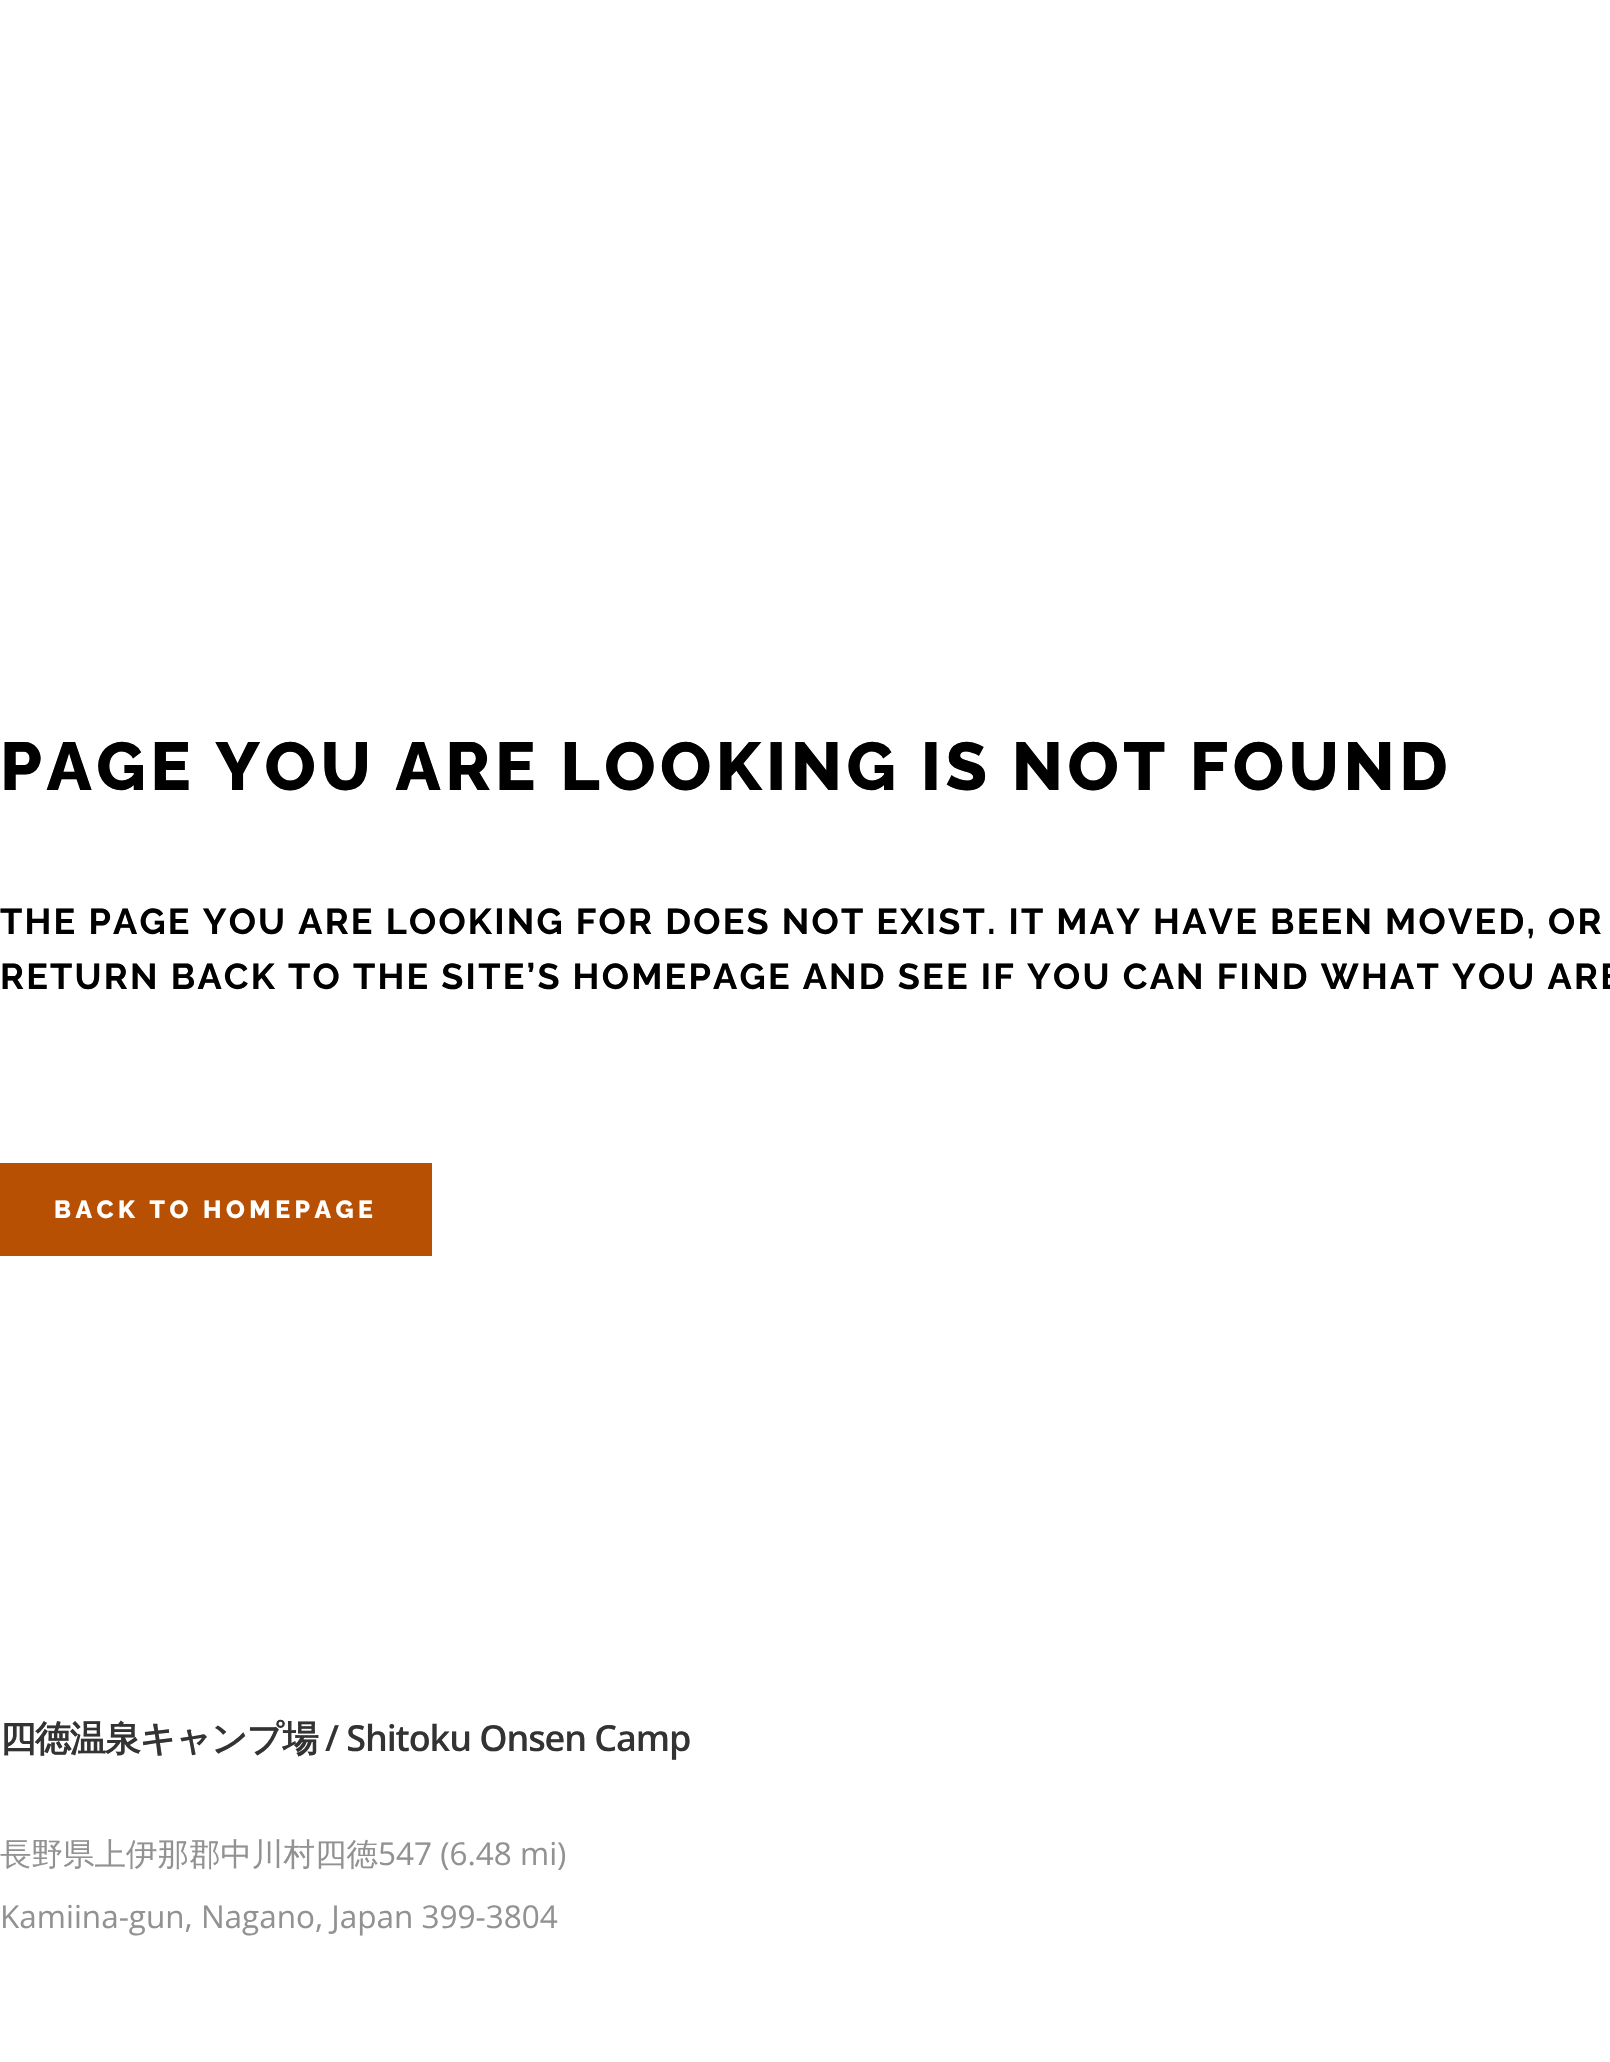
void draw(SkCanvas* c) {
SkPaint p;
p.setAntiAlias(true);
auto F=[&](const char* family, int weight, float size, bool italic = false){SkFontStyle style(weight, SkFontStyle::kNormal_Width,italic ? SkFontStyle::kItalic_Slant : SkFontStyle::kUpright_Slant);SkFont result(fontMgr->matchFamilyStyle(family, style), size);result.setSubpixel(true);return result;};
auto T=[&](const char* s, float x, float y, const SkFont& font){c->drawString(s, x, y, font, p);};
auto L=[&](const char* s, float x, float y, const SkFont& font, const SkPaint& ink, float letter, float word){std::vector<SkGlyphID> glyphs(font.countText(s, strlen(s), SkTextEncoding::kUTF8));std::vector<float> xs(glyphs.size());font.textToGlyphs(s, strlen(s), SkTextEncoding::kUTF8, glyphs);font.getXPos(glyphs, xs, x);float extra = 0;for (size_t i = 0; i < glyphs.size(); i++) {xs[i] += extra;extra += letter + word * (glyphs[i] == font.unicharToGlyph(' '));}c->drawTextBlob(SkTextBlob::MakeFromPosHGlyphs(glyphs, xs, y, font), 0, 0, ink);};
auto R=[&](float x, float y, float w, float h){c->drawRect(SkRect::MakeXYWH(x, y, w, h), p);};
c->clear(0xffffffff);
auto f1 = F("Raleway",800,67.5);
p.setColor(0xff000000);
L("PAGE YOU ARE LOOKING IS NOT FOUND",0,790,f1,p,4.5,0);
auto f2 = F("Raleway",700,36);
L("THE PAGE YOU ARE LOOKING FOR DOES NOT EXIST. IT MAY HAVE BEEN MOVED, OR",0,934,f2,p,2.25,0);
L("RETURN BACK TO THE SITE’S HOMEPAGE AND SEE IF YOU CAN FIND WHAT YOU ARE",0,989,f2,p,2.25,0);
p.setColor(0xffb75002);
R(0,1163,432,93);
auto f3 = F("Raleway",800,24.75);
p.setColor(0xffffffff);
L("BACK TO HOMEPAGE",54,1218,f3,p,4.5,0);
auto f4 = F("WenQuanYi Zen Hei",700,36);
p.setColor(0xff333333);
L("四徳温泉キャンプ場",0,1751,f4,p,-1.1,0);
auto f5 = F("Open Sans",600,36);
L("/ Shitoku Onsen Camp",325,1751,f5,p,-1.1,0);
auto f6 = F("WenQuanYi Zen Hei",500,31.5);
p.setColor(0xff929292);
T("長野県上伊那郡中川村四徳",0,1865,f6);
auto f7 = F("Open Sans",400,31.5);
T("547 (6.48 mi)",378,1865,f7);
T("Kamiina-gun, Nagano, Japan 399-3804",0,1928,f7);
}
